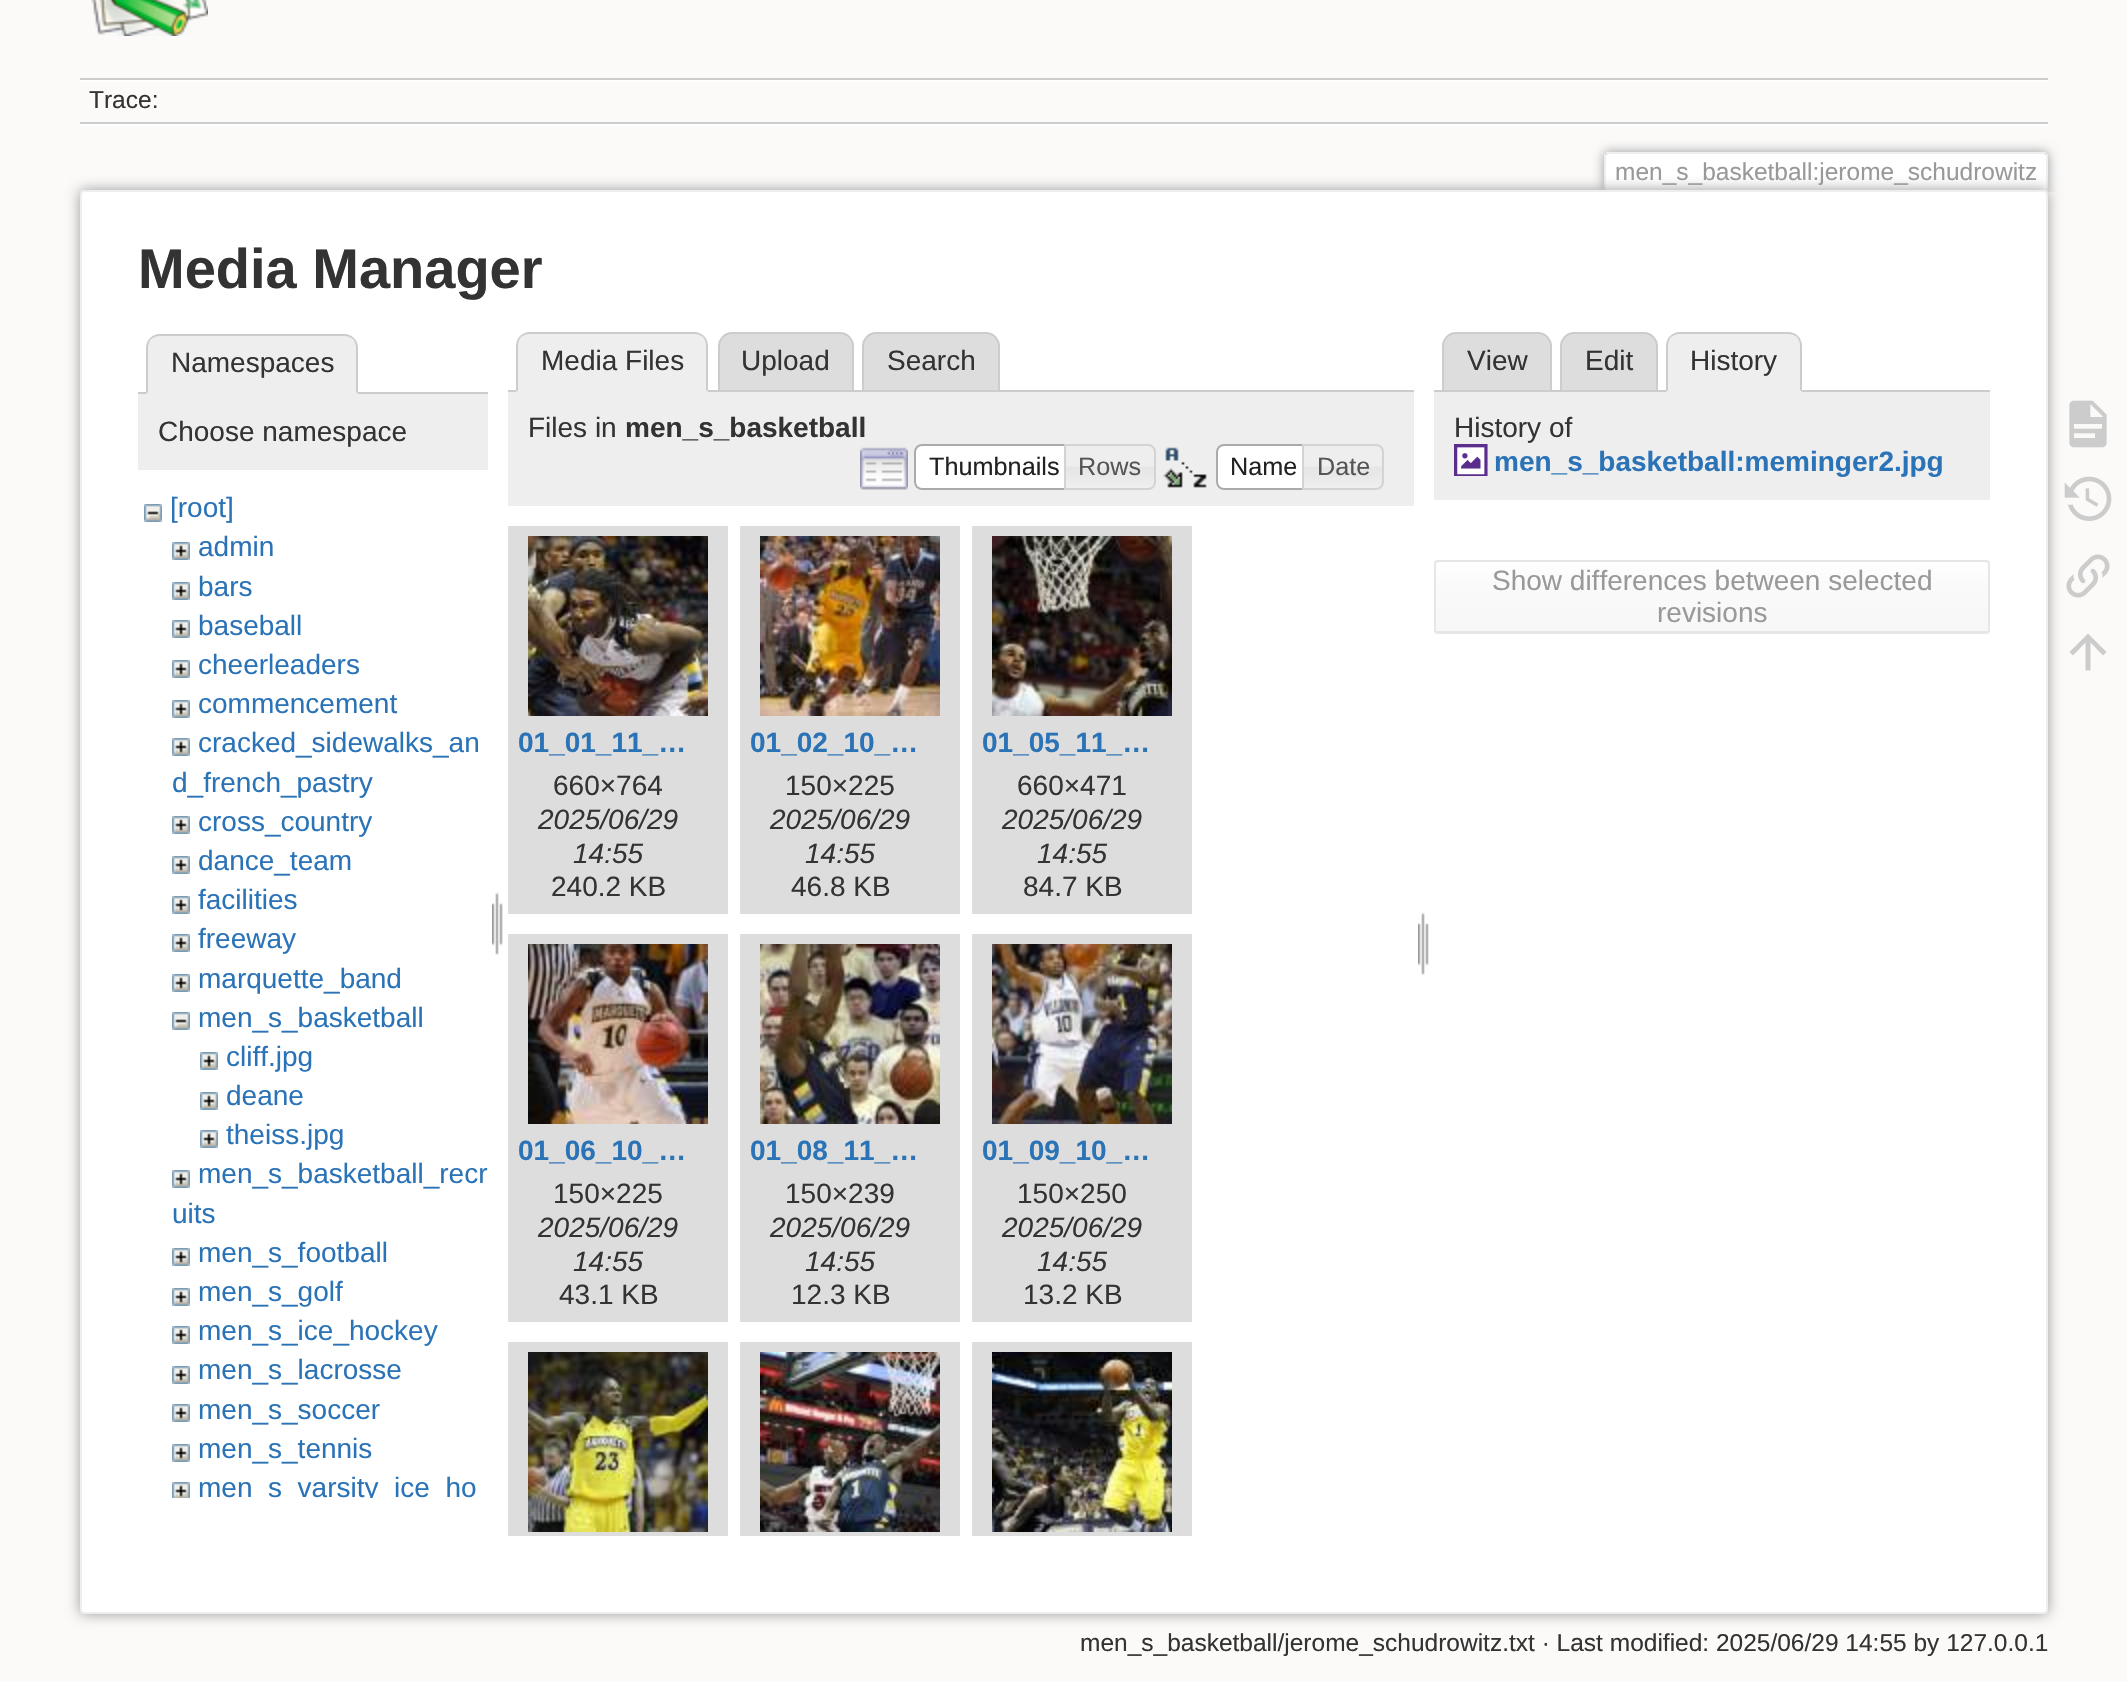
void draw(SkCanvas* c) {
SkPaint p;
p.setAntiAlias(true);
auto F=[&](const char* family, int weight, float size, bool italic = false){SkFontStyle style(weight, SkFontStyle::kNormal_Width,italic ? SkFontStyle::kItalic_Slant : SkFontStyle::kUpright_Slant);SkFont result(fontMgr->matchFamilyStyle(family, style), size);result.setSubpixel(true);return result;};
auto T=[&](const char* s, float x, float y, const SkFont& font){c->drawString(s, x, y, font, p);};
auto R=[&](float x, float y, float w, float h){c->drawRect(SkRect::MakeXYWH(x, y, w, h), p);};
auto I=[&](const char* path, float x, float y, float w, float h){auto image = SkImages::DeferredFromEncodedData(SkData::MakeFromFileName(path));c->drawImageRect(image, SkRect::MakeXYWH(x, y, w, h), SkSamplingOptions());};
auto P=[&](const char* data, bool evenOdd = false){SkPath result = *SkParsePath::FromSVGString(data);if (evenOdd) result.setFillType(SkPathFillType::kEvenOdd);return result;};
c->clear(0xfffbfaf9);
I("1.png",91,0,117,36);
p.setColor(0xffcccccc);
R(80,78,1968,2);
p.setColor(0xffffffff);
R(80,124,1968,2);
R(80,80,1968,2);
p.setColor(0xffcccccc);
R(80,122,1968,2);
auto f1 = F("Liberation Sans",400,24.5);
p.setColor(0xff333333);
T("Trace:",89,108,f1);
c->save();
c->clipRect(SkRect::MakeXYWH(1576,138,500,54));
p.setColor(0xff999999);
p.setMaskFilter(SkMaskFilter::MakeBlur(kNormal_SkBlurStyle, 6));
c->drawRoundRect(SkRect::MakeXYWH(1604,152,444,40),4,4,p);
p.setMaskFilter(nullptr);
c->restore();
p.setColor(0xffffffff);
c->drawPath(P("M1608 154h436c1 0 2 1 2 2v36h-440v-36c0-1 1-2 2-2z"),p);
p.setColor(0xffeeeeee);
R(1606,152,440,2);
R(2046,154,2,38);
R(1604,154,2,38);
p.setColor(0xff999999);
T("men_s_basketball:jerome_schudrowitz",1615,180,f1);
p.setMaskFilter(SkMaskFilter::MakeBlur(kNormal_SkBlurStyle, 7));
c->drawRoundRect(SkRect::MakeXYWH(80,190,1968,1424),4,4,p);
p.setMaskFilter(nullptr);
p.setColor(0xffffffff);
c->drawRoundRect(SkRect::MakeXYWH(81,191,1966,1422),3,3,p);
p.setStroke(true);
p.setStrokeWidth(2);
p.setColor(0xffeeeeee);
c->drawRoundRect(SkRect::MakeXYWH(81,191,1966,1422),3,3,p);
auto f2 = F("Liberation Sans",700,56);
p.setStroke(false);
p.setColor(0xff333333);
T("Media Manager",138,288,f2);
p.setColor(0xffcccccc);
R(138,392,350,2);
p.setColor(0xffeeeeee);
c->drawPath(P("M160 334h184c7.5 0 14 6.5 14 14v46h-212v-46c0-7.5 6.5-14 14-14z"),p);
p.setColor(0xffcccccc);
c->drawPath(P("M160 334c-4 0-8 2-10 4l1 1c3-2 5-3 9-3h184c4 0 6 1 9 3l1-1c-2-2-6-4-10-4z"),p);
c->drawPath(P("M358 394v-46c0-4-2-8-4-10l-1 1c2 3 3 5 3 9v44z"),p);
p.setColor(0xffeeeeee);
c->drawPath(P("M358 394l-2-2h-208l-2 2z"),p);
p.setColor(0xffcccccc);
c->drawPath(P("M146 394l2-2v-44c0-4 1-6 3-9l-1-1c-2 2-4 6-4 10z"),p);
auto f3 = F("Liberation Sans",400,28);
p.setColor(0xff333333);
T("Namespaces",171,372,f3);
p.setColor(0xffeeeeee);
R(138,394,350,76);
p.setColor(0xff333333);
T("Choose namespace",158,441,f3);
I("2.png",144,504,18,18);
p.setColor(0xff2b73b7);
T("[root]",170,517,f3);
I("3.png",172,542,18,18);
T("admin",198,556,f3);
I("3.png",172,582,18,18);
T("bars",198,596,f3);
I("3.png",172,620,18,18);
T("baseball",198,635,f3);
I("3.png",172,660,18,18);
T("cheerleaders",198,674,f3);
I("3.png",172,700,18,18);
T("commencement",198,713,f3);
I("3.png",172,738,18,18);
T("cracked_sidewalks_an",198,752,f3);
T("d_french_pastry",172,792,f3);
I("3.png",172,816,18,18);
T("cross_country",198,831,f3);
I("3.png",172,856,18,18);
T("dance_team",198,870,f3);
I("3.png",172,896,18,18);
T("facilities",198,909,f3);
I("3.png",172,934,18,18);
T("freeway",198,948,f3);
I("3.png",172,974,18,18);
T("marquette_band",198,988,f3);
I("2.png",172,1012,18,18);
T("men_s_basketball",198,1027,f3);
I("3.png",200,1052,18,18);
T("cliff.jpg",226,1066,f3);
I("3.png",200,1092,18,18);
T("deane",226,1105,f3);
I("3.png",200,1130,18,18);
T("theiss.jpg",226,1144,f3);
I("3.png",172,1170,18,18);
T("men_s_basketball_recr",198,1183,f3);
T("uits",172,1223,f3);
I("3.png",172,1248,18,18);
T("men_s_football",198,1262,f3);
I("3.png",172,1288,18,18);
T("men_s_golf",198,1301,f3);
I("3.png",172,1326,18,18);
T("men_s_ice_hockey",198,1340,f3);
I("3.png",172,1366,18,18);
T("men_s_lacrosse",198,1379,f3);
I("3.png",172,1404,18,18);
T("men_s_soccer",198,1419,f3);
I("3.png",172,1444,18,18);
T("men_s_tennis",198,1458,f3);
I("4.png",172,1482,18,16);
c->save();
c->clipRect(SkRect::MakeXYWH(138,490,350,1008));
T("men_s_varsity_ice_ho",198,1497,f3);
c->restore();
I("5.png",492,892,11,63);
p.setColor(0xffdddddd);
c->drawPath(P("M732 333h108c7 0 13 6 13 13v45h-134v-45c0-7 6-13 13-13z"),p);
p.setStroke(true);
p.setColor(0xffcccccc);
c->drawPath(P("M732 333h108c7 0 13 6 13 13v45h-134v-45c0-7 6-13 13-13z"),p);
p.setStroke(false);
p.setColor(0xffdddddd);
c->drawPath(P("M876 333h110c7 0 13 6 13 13v45h-136v-45c0-7 6-13 13-13z"),p);
p.setStroke(true);
p.setColor(0xffcccccc);
c->drawPath(P("M876 333h110c7 0 13 6 13 13v45h-136v-45c0-7 6-13 13-13z"),p);
p.setStroke(false);
R(508,390,906,2);
p.setColor(0xffeeeeee);
c->drawPath(P("M530 332h164c7.5 0 14 6.5 14 14v46h-192v-46c0-7.5 6.5-14 14-14z"),p);
p.setColor(0xffcccccc);
c->drawPath(P("M530 332c-4 0-8 2-10 4l1 1c3-2 5-3 9-3h164c4 0 6 1 9 3l1-1c-2-2-6-4-10-4z"),p);
c->drawPath(P("M708 392v-46c0-4-2-8-4-10l-1 1c2 3 3 5 3 9v44z"),p);
p.setColor(0xffeeeeee);
c->drawPath(P("M708 392l-2-2h-188l-2 2z"),p);
p.setColor(0xffcccccc);
c->drawPath(P("M516 392l2-2v-44c0-4 1-6 3-9l-1-1c-2 2-4 6-4 10z"),p);
p.setColor(0xff333333);
T("Media Files",541,370,f3);
T("Upload",741,370,f3);
T("Search",887,370,f3);
p.setColor(0xffeeeeee);
R(508,392,906,114);
p.setColor(0xff333333);
T("Files in",528,437,f3);
auto f4 = F("Liberation Sans",700,28);
T("men_s_basketball",625,437,f4);
I("6.png",860,447,48,43);
p.setColor(0xffffffff);
c->drawPath(P("M922 444h152v46h-152c-4.5 0-8-3.5-8-8v-30c0-4.5 3.5-8 8-8z"),p);
I("7.png",914,444,6,46);
p.setStroke(true);
p.setColor(0xffaaaaaa);
c->drawPath(P("M922 445h151v44h-151c-4 0-7-3-7-7v-30c0-4 3-7 7-7z"),p);
auto f5 = F("Liberation Sans",400,25.25);
p.setStroke(false);
p.setColor(0xff212121);
T("Thumbnails",929,475,f5);
I("8.png",1066,444,90,46);
p.setStroke(true);
p.setColor(0xffd3d3d3);
c->drawPath(P("M1065 445h83c4 0 7 3 7 7v30c0 4-3 7-7 7h-83z"),p);
p.setStroke(false);
p.setColor(0xff555555);
T("Rows",1078,475,f5);
I("9.png",1163,447,44,41);
p.setColor(0xffffffff);
c->drawPath(P("M1224 444h88v46h-88c-4.5 0-8-3.5-8-8v-30c0-4.5 3.5-8 8-8z"),p);
I("7.png",1216,444,6,46);
p.setStroke(true);
p.setColor(0xffaaaaaa);
c->drawPath(P("M1224 445h87v44h-87c-4 0-7-3-7-7v-30c0-4 3-7 7-7z"),p);
p.setStroke(false);
p.setColor(0xff212121);
T("Name",1230,475,f5);
I("10.png",1304,444,80,46);
p.setStroke(true);
p.setColor(0xffd3d3d3);
c->drawPath(P("M1303 445h73c4 0 7 3 7 7v30c0 4-3 7-7 7h-73z"),p);
p.setStroke(false);
p.setColor(0xff555555);
T("Date",1317,475,f5);
p.setColor(0xffdddddd);
R(508,526,220,388);
I("11.png",528,536,180,180);
p.setColor(0xff2b73b7);
T("01_01_11_…",518,752,f4);
p.setColor(0xff333333);
T("660×764",553,795,f3);
auto f6 = F("Liberation Sans",400,28,true);
T("2025/06/29",538,829,f6);
T("14:55",573,863,f6);
T("240.2 KB",551,896,f3);
p.setColor(0xffdddddd);
R(740,526,220,388);
I("12.png",760,536,180,180);
p.setColor(0xff2b73b7);
T("01_02_10_…",750,752,f4);
p.setColor(0xff333333);
T("150×225",785,795,f3);
T("2025/06/29",770,829,f6);
T("14:55",805,863,f6);
T("46.8 KB",791,896,f3);
p.setColor(0xffdddddd);
R(972,526,220,388);
I("13.png",992,536,180,180);
p.setColor(0xff2b73b7);
T("01_05_11_…",982,752,f4);
p.setColor(0xff333333);
T("660×471",1017,795,f3);
T("2025/06/29",1002,829,f6);
T("14:55",1037,863,f6);
T("84.7 KB",1023,896,f3);
p.setColor(0xffdddddd);
R(508,934,220,388);
I("14.png",528,944,180,180);
p.setColor(0xff2b73b7);
T("01_06_10_…",518,1160,f4);
p.setColor(0xff333333);
T("150×225",553,1203,f3);
T("2025/06/29",538,1237,f6);
T("14:55",573,1271,f6);
T("43.1 KB",559,1304,f3);
p.setColor(0xffdddddd);
R(740,934,220,388);
I("15.png",760,944,180,180);
p.setColor(0xff2b73b7);
T("01_08_11_…",750,1160,f4);
p.setColor(0xff333333);
T("150×239",785,1203,f3);
T("2025/06/29",770,1237,f6);
T("14:55",805,1271,f6);
T("12.3 KB",791,1304,f3);
p.setColor(0xffdddddd);
R(972,934,220,388);
I("16.png",992,944,180,180);
p.setColor(0xff2b73b7);
T("01_09_10_…",982,1160,f4);
p.setColor(0xff333333);
T("150×250",1017,1203,f3);
T("2025/06/29",1002,1237,f6);
T("14:55",1037,1271,f6);
T("13.2 KB",1023,1304,f3);
p.setColor(0xffdddddd);
R(508,1342,220,194);
I("17.png",528,1352,180,180);
R(740,1342,220,194);
I("18.png",760,1352,180,180);
R(972,1342,220,194);
I("19.png",992,1352,180,180);
I("5.png",1418,912,11,63);
c->drawPath(P("M1456 333h82c7 0 13 6 13 13v45h-108v-45c0-7 6-13 13-13z"),p);
p.setStroke(true);
p.setColor(0xffcccccc);
c->drawPath(P("M1456 333h82c7 0 13 6 13 13v45h-108v-45c0-7 6-13 13-13z"),p);
p.setStroke(false);
p.setColor(0xff333333);
T("View",1467,370,f3);
p.setColor(0xffdddddd);
c->drawPath(P("M1574 333h70c7 0 13 6 13 13v45h-96v-45c0-7 6-13 13-13z"),p);
p.setStroke(true);
p.setColor(0xffcccccc);
c->drawPath(P("M1574 333h70c7 0 13 6 13 13v45h-96v-45c0-7 6-13 13-13z"),p);
p.setStroke(false);
p.setColor(0xff333333);
T("Edit",1585,370,f3);
p.setColor(0xffcccccc);
R(1434,390,556,2);
p.setColor(0xffeeeeee);
c->drawPath(P("M1680 332h108c7.5 0 14 6.5 14 14v46h-136v-46c0-7.5 6.5-14 14-14z"),p);
p.setColor(0xffcccccc);
c->drawPath(P("M1680 332c-4 0-8 2-10 4l1 1c3-2 5-3 9-3h108c4 0 6 1 9 3l1-1c-2-2-6-4-10-4z"),p);
c->drawPath(P("M1802 392v-46c0-4-2-8-4-10l-1 1c2 3 3 5 3 9v44z"),p);
p.setColor(0xffeeeeee);
c->drawPath(P("M1802 392l-2-2h-132l-2 2z"),p);
p.setColor(0xffcccccc);
c->drawPath(P("M1666 392l2-2v-44c0-4 1-6 3-9l-1-1c-2 2-4 6-4 10z"),p);
p.setColor(0xff333333);
T("History",1690,370,f3);
p.setColor(0xffeeeeee);
R(1434,392,556,108);
p.setColor(0xff333333);
T("History of",1454,437,f3);
I("20.png",1454,444,34,32);
p.setColor(0xff2b73b7);
T("men_s_basketball:meminger2.jpg",1494,471,f4);
c->save();
c->clipPath(P("M1438 560h548c2 0 4 2 4 4v66c0 2-2 4-4 4h-548c-2 0-4-2-4-4v-66c0-2 2-4 4-4z"),true);
{
const SkColor colors[] = {0xffffffff,0xfffafafa,0xfff7f7f7,0xffe6e6e6};
const float stops[] = {0,.3,.99,.99};
const SkPoint ends[] = {{1712,562}, {1712,632}};
p.setShader(SkGradientShader::MakeLinear(ends, colors, stops, 4, SkTileMode::kClamp));
p.setAlpha(255);
}
R(1434,562,556,70);
c->restore();
p.setStroke(true);
p.setShader(nullptr);
p.setColor(0xffe6e6e6);
c->drawRoundRect(SkRect::MakeXYWH(1435,561,554,72),3,3,p);
p.setStroke(false);
p.setColor(0xff999999);
T("Show differences between selected",1492,590,f3);
T("revisions",1657,622,f3);
p.setColor(0xff333333);
T("men_s_basketball/jerome_schudrowitz.txt · Last modified: 2025/06/29 14:55 by 127.0.0.1",1080,1651,f1);
I("21.png",2069,400,38,48);
I("22.png",2064,476,48,45);
I("23.png",2066,554,44,44);
p.setColor(0xffcccccc);
c->drawPath(P("M2090.5 670.5h-5v-28l-12.5 13l-3.5-3.5l18.5-18.5l18.5 18.5l-3.5 3.5l-12.5-13z"),p);
}
